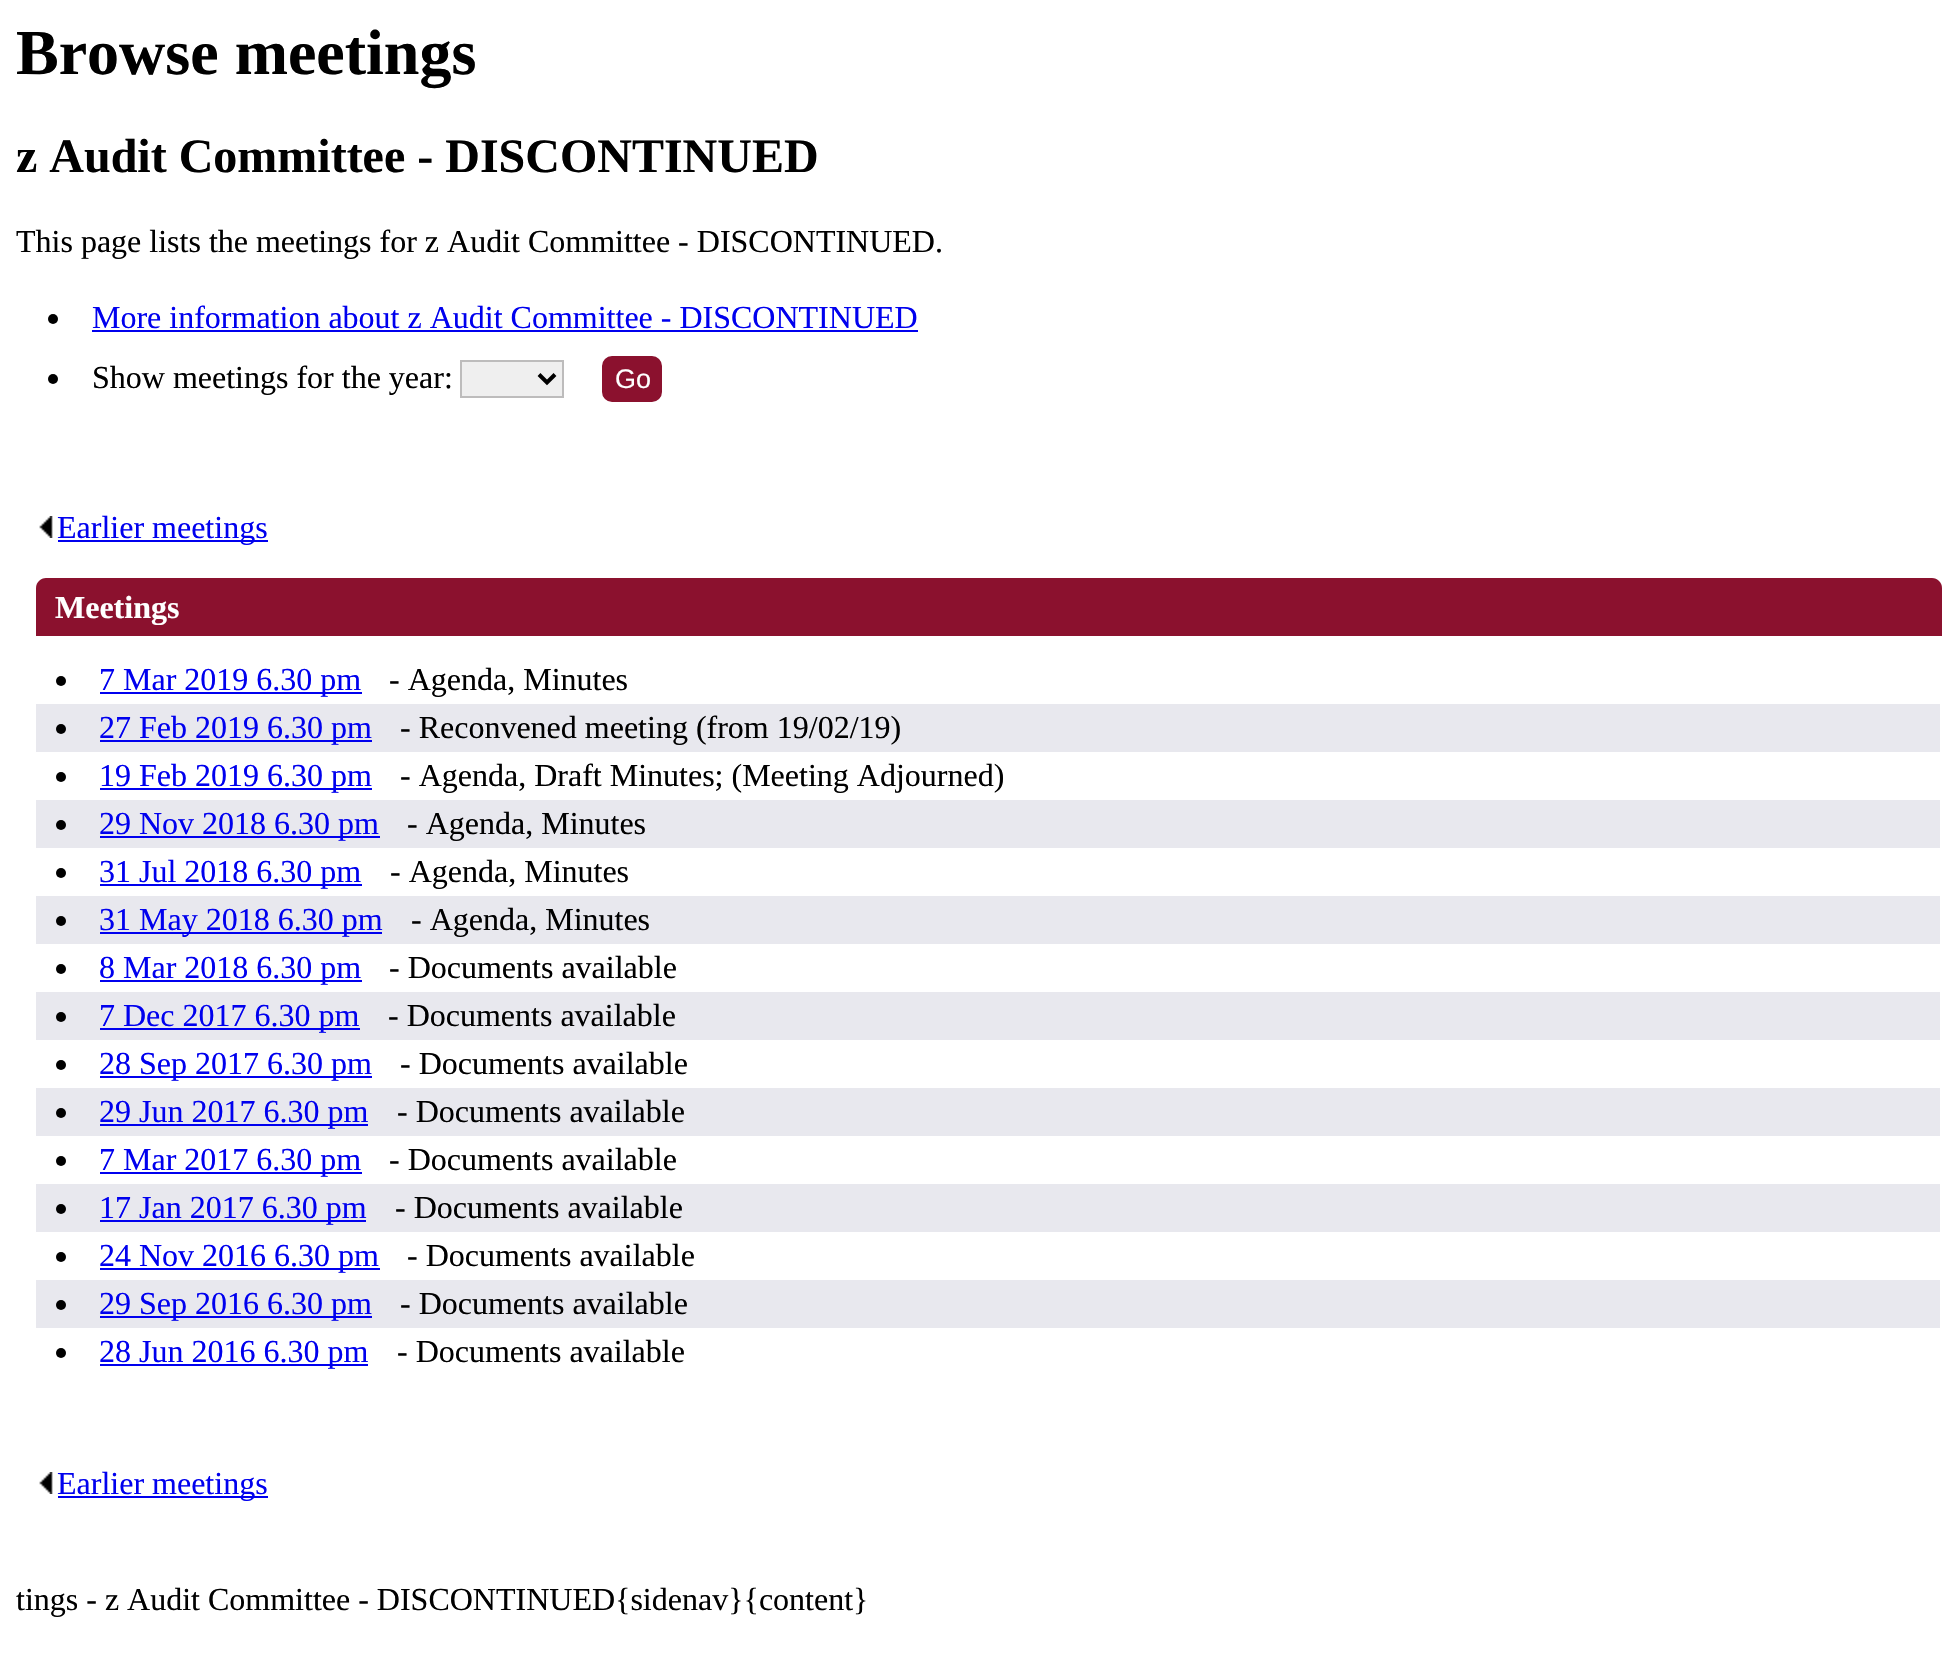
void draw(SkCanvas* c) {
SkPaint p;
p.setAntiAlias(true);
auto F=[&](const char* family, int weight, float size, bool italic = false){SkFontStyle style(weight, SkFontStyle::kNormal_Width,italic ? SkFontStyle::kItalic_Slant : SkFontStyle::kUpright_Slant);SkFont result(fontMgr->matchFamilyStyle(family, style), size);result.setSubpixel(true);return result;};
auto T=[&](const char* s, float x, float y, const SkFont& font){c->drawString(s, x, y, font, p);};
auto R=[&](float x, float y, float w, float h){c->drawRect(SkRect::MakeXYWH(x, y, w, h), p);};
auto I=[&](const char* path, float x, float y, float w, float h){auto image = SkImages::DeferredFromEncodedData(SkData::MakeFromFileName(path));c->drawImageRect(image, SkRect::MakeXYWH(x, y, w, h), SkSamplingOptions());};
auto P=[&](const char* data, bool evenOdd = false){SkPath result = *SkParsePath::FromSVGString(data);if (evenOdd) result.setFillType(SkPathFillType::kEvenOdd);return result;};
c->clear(0xffffffff);
auto f1 = F("Liberation Serif",700,64);
p.setColor(0xff000000);
T("Browse meetings",16,74,f1);
auto f2 = F("Liberation Serif",700,48);
T("z Audit Committee - DISCONTINUED",16,172,f2);
auto f3 = F("Liberation Serif",400,32);
T("This page lists the meetings for z Audit Committee - DISCONTINUED.",16,252,f3);
c->drawCircle(53,319,5,p);
p.setColor(0xff0000ee);
T("More information about z Audit Committee - DISCONTINUED",92,328,f3);
R(92,330,826,2);
p.setColor(0xff000000);
c->drawCircle(53,379,5,p);
T("Show meetings for the year:",92,388,f3);
p.setColor(0xffefefef);
c->drawRect(SkRect::MakeXYWH(461,361,102,36),p);
p.setStroke(true);
p.setStrokeWidth(2);
p.setColor(0xffbdbcbc);
c->drawRect(SkRect::MakeXYWH(461,361,102,36),p);
p.setStrokeWidth(4);
p.setColor(0xff000000);
c->drawPath(P("M539 374.5l8 8l8-8"),p);
p.setStroke(false);
p.setColor(0xff8b112e);
c->drawRoundRect(SkRect::MakeXYWH(603,357,58,44),9,9,p);
p.setStroke(true);
p.setStrokeWidth(2);
c->drawRoundRect(SkRect::MakeXYWH(603,357,58,44),9,9,p);
auto f4 = F("Liberation Sans",400,27);
p.setStroke(false);
p.setColor(0xffffffff);
T("Go",615,388,f4);
I("1.png",39,516,14,22);
p.setColor(0xff0000ee);
R(58,540,210,2);
T("Earlier meetings",57,538,f3);
p.setColor(0xff8b112e);
c->drawPath(P("M46 578h1886c5.5 0 10 4.5 10 10v48h-1906v-48c0-5.5 4.5-10 10-10z"),p);
auto f5 = F("Liberation Serif",700,32);
p.setColor(0xffffffff);
T("Meetings",55,618,f5);
p.setColor(0xff000000);
c->drawCircle(61,681,5,p);
p.setColor(0xff0000ee);
R(100,692,262,2);
T("7 Mar 2019 6.30 pm",99,690,f3);
p.setColor(0xff000000);
T("- Agenda, Minutes",389,690,f3);
p.setColor(0xffe8e8ee);
R(36,704,1904,48);
p.setColor(0xff000000);
c->drawCircle(61,729,5,p);
p.setColor(0xff0000ee);
R(100,740,272,2);
T("27 Feb 2019 6.30 pm",99,738,f3);
p.setColor(0xff000000);
T("- Reconvened meeting (from 19/02/19)",400,738,f3);
c->drawCircle(61,777,5,p);
p.setColor(0xff0000ee);
R(100,788,272,2);
T("19 Feb 2019 6.30 pm",99,786,f3);
p.setColor(0xff000000);
T("- Agenda, Draft Minutes; (Meeting Adjourned)",400,786,f3);
p.setColor(0xffe8e8ee);
R(36,800,1904,48);
p.setColor(0xff000000);
c->drawCircle(61,825,5,p);
p.setColor(0xff0000ee);
R(100,836,280,2);
T("29 Nov 2018 6.30 pm",99,834,f3);
p.setColor(0xff000000);
T("- Agenda, Minutes",407,834,f3);
c->drawCircle(61,873,5,p);
p.setColor(0xff0000ee);
R(100,884,262,2);
T("31 Jul 2018 6.30 pm",99,882,f3);
p.setColor(0xff000000);
T("- Agenda, Minutes",390,882,f3);
p.setColor(0xffe8e8ee);
R(36,896,1904,48);
p.setColor(0xff000000);
c->drawCircle(61,921,5,p);
p.setColor(0xff0000ee);
R(100,932,282,2);
T("31 May 2018 6.30 pm",99,930,f3);
p.setColor(0xff000000);
T("- Agenda, Minutes",411,930,f3);
c->drawCircle(61,969,5,p);
p.setColor(0xff0000ee);
R(100,980,262,2);
T("8 Mar 2018 6.30 pm",99,978,f3);
p.setColor(0xff000000);
T("- Documents available",389,978,f3);
p.setColor(0xffe8e8ee);
R(36,992,1904,48);
p.setColor(0xff000000);
c->drawCircle(61,1017,5,p);
p.setColor(0xff0000ee);
R(100,1028,260,2);
T("7 Dec 2017 6.30 pm",99,1026,f3);
p.setColor(0xff000000);
T("- Documents available",388,1026,f3);
c->drawCircle(61,1065,5,p);
p.setColor(0xff0000ee);
R(100,1076,272,2);
T("28 Sep 2017 6.30 pm",99,1074,f3);
p.setColor(0xff000000);
T("- Documents available",400,1074,f3);
p.setColor(0xffe8e8ee);
R(36,1088,1904,48);
p.setColor(0xff000000);
c->drawCircle(61,1113,5,p);
p.setColor(0xff0000ee);
R(100,1124,268,2);
T("29 Jun 2017 6.30 pm",99,1122,f3);
p.setColor(0xff000000);
T("- Documents available",397,1122,f3);
c->drawCircle(61,1161,5,p);
p.setColor(0xff0000ee);
R(100,1172,262,2);
T("7 Mar 2017 6.30 pm",99,1170,f3);
p.setColor(0xff000000);
T("- Documents available",389,1170,f3);
p.setColor(0xffe8e8ee);
R(36,1184,1904,48);
p.setColor(0xff000000);
c->drawCircle(61,1209,5,p);
p.setColor(0xff0000ee);
R(100,1220,266,2);
T("17 Jan 2017 6.30 pm",99,1218,f3);
p.setColor(0xff000000);
T("- Documents available",395,1218,f3);
c->drawCircle(61,1257,5,p);
p.setColor(0xff0000ee);
R(100,1268,280,2);
T("24 Nov 2016 6.30 pm",99,1266,f3);
p.setColor(0xff000000);
T("- Documents available",407,1266,f3);
p.setColor(0xffe8e8ee);
R(36,1280,1904,48);
p.setColor(0xff000000);
c->drawCircle(61,1305,5,p);
p.setColor(0xff0000ee);
R(100,1316,272,2);
T("29 Sep 2016 6.30 pm",99,1314,f3);
p.setColor(0xff000000);
T("- Documents available",400,1314,f3);
c->drawCircle(61,1353,5,p);
p.setColor(0xff0000ee);
R(100,1364,268,2);
T("28 Jun 2016 6.30 pm",99,1362,f3);
p.setColor(0xff000000);
T("- Documents available",397,1362,f3);
I("1.png",39,1472,14,22);
p.setColor(0xff0000ee);
R(58,1496,210,2);
T("Earlier meetings",57,1494,f3);
p.setColor(0xff000000);
T("tings - z Audit Committee - DISCONTINUED{sidenav}{content}",16,1610,f3);
}
